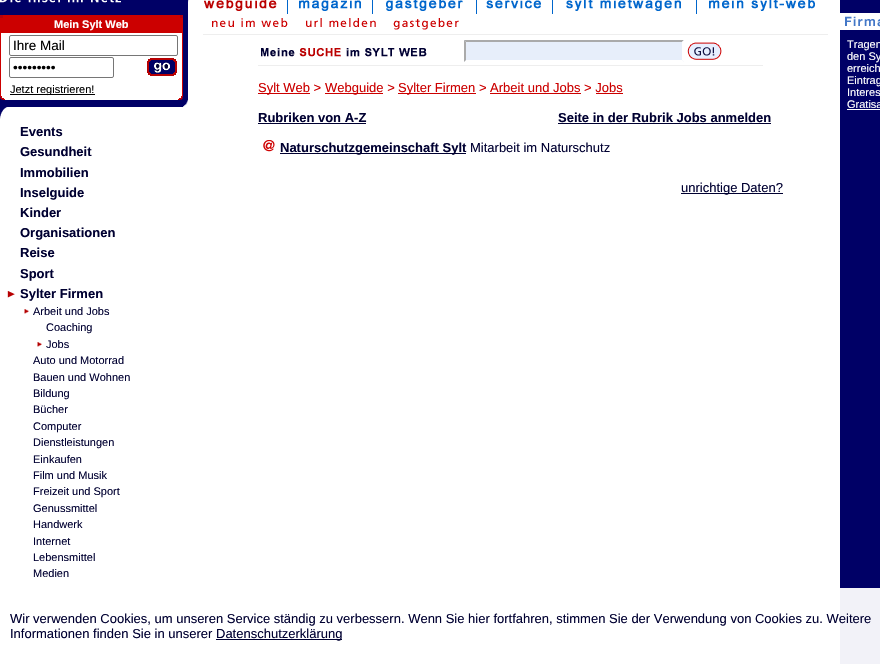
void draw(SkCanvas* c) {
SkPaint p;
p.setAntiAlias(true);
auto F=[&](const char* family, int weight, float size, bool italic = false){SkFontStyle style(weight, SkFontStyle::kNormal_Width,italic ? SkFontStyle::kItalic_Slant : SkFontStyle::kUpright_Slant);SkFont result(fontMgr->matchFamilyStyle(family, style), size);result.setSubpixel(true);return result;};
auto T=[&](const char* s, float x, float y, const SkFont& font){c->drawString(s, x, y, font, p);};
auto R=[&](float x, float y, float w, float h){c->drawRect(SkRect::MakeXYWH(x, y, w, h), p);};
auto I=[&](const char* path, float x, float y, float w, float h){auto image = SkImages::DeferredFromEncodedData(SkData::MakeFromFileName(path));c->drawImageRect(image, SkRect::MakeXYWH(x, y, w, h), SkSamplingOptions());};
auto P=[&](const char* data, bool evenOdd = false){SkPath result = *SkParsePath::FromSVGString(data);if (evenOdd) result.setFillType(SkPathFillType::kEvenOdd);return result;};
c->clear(0xff000066);
p.setColor(0xffffffff);
R(188,0,652,664);
I("1.png",0,0,121,3);
R(1,33,181,67);
p.setColor(0xffcc0000);
R(0,15,183,18);
p.setColor(0xffb3000c);
R(0,15,3,3);
R(180,15,3,3);
auto f1 = F("Liberation Sans",700,11);
p.setColor(0xffffffff);
T("Mein Sylt Web",54,28,f1);
p.setColor(0xffcc0000);
R(0,33,1,62);
p.setStroke(true);
p.setStrokeWidth(1);
p.setColor(0xff767676);
c->drawRoundRect(SkRect::MakeXYWH(9.5,35.5,168,20),1.5,1.5,p);
auto f2 = F("Liberation Sans",400,13.5);
p.setStroke(false);
p.setColor(0xff000000);
T("Ihre Mail",13,50,f2);
p.setStroke(true);
p.setColor(0xff767676);
c->drawRoundRect(SkRect::MakeXYWH(9.5,57.5,104,20),1.5,1.5,p);
p.setStroke(false);
p.setColor(0xff000000);
T("•••••••••",13,72,f2);
I("2.png",147,58,30,18);
R(10,94,85,1);
auto f3 = F("Liberation Sans",400,11);
T("Jetzt registrieren!",10,93,f3);
p.setColor(0xffcc0000);
R(182,33,1,62);
p.setColor(0xff000066);
R(0,99,5,1);
I("3.png",0,95,5,5);
p.setColor(0xffffffff);
R(48,95,3,1);
p.setColor(0xff000066);
R(178,99,5,1);
I("4.png",178,95,5,5);
I("5.png",183,100,5,7);
p.setColor(0xffffffff);
R(8,107,180,12);
I("6.png",0,107,8,12);
R(0,119,188,545);
auto f4 = F("Liberation Sans",700,13);
p.setColor(0xff000031);
T("Events",20,136,f4);
T("Gesundheit",20,156,f4);
T("Immobilien",20,177,f4);
T("Inselguide",20,197,f4);
T("Kinder",20,217,f4);
T("Organisationen",20,237,f4);
T("Reise",20,257,f4);
T("Sport",20,278,f4);
I("7.png",7,291,8,7);
T("Sylter Firmen",20,298,f4);
I("8.png",24,309,5,5);
T("Arbeit und Jobs",33,315,f3);
T("Coaching",46,331,f3);
I("8.png",37,342,5,5);
T("Jobs",46,348,f3);
T("Auto und Motorrad",33,364,f3);
T("Bauen und Wohnen",33,381,f3);
T("Bildung",33,397,f3);
T("Bücher",33,413,f3);
T("Computer",33,430,f3);
T("Dienstleistungen",33,446,f3);
T("Einkaufen",33,463,f3);
T("Film und Musik",33,479,f3);
T("Freizeit und Sport",33,495,f3);
T("Genussmittel",33,512,f3);
T("Handwerk",33,528,f3);
T("Internet",33,545,f3);
T("Lebensmittel",33,561,f3);
T("Medien",33,577,f3);
I("9.png",188,0,1,2);
I("10.png",204,0,73,11);
p.setColor(0xff0066cc);
R(287,0,1,14);
I("11.png",299,0,62,11);
R(372,0,1,14);
I("12.png",386,0,77,11);
R(476,0,1,14);
I("13.png",486,0,55,9);
R(552,0,1,14);
I("14.png",566,0,115,11);
R(696,0,1,14);
I("15.png",709,0,106,11);
I("16.png",212,18,76,9);
I("17.png",306,18,70,9);
I("18.png",393,18,66,12);
p.setColor(0xffeeeeee);
R(203,34,625,1);
R(258,65,505,1);
I("19.png",261,48,166,9);
p.setColor(0xffe7eefa);
R(464,40,220,22);
p.setColor(0xffaaaaaa);
c->drawPath(P("M464 40h220l-2 2h-216z"),p);
p.setColor(0xffffffff);
c->drawPath(P("M684 40v22l-2-2v-18z"),p);
c->drawPath(P("M684 62h-220l2-2h216z"),p);
p.setColor(0xffaaaaaa);
c->drawPath(P("M464 62v-22l2 2v18z"),p);
I("20.png",687,42,35,18);
p.setColor(0xffcc0000);
R(258,93,52,1);
auto f5 = F("Liberation Sans",400,13);
T("Sylt Web >",258,92,f5);
R(325,93,58,1);
T("Webguide >",325,92,f5);
R(398,93,78,1);
T("Sylter Firmen > Arbeit und Jobs > Jobs",398,92,f5);
R(490,93,91,1);
R(596,93,27,1);
p.setColor(0xff000031);
T("Rubriken von A-Z",258,122,f4);
R(258,123,108,1);
T("Seite in der Rubrik Jobs anmelden",558,122,f4);
R(558,123,213,1);
I("21.png",263,140,12,12);
R(280,153,186,1);
T("Naturschutzgemeinschaft Sylt",280,152,f4);
T("Mitarbeit im Naturschutz",470,152,f5);
R(681,193,102,1);
T("unrichtige Daten?",681,192,f5);
I("22.png",840,13,40,17);
p.setColor(0xffffffff);
T("Tragen",847,48,f3);
T("den Sy",847,60,f3);
T("erreich",847,72,f3);
T("Eintrag",847,84,f3);
T("Interes",847,96,f3);
T("Gratisa",847,108,f3);
R(847,109,33,1);
p.setColor(0xf2ffffff);
R(840,588,40,76);
p.setColor(0xff000031);
T("Wir verwenden Cookies, um unseren Service ständig zu verbessern. Wenn Sie hier fortfahren, stimmen Sie der Verwendung von Cookies zu. Weitere",10,623,f5);
T("Informationen finden Sie in unserer",10,638,f5);
R(216,639,126,1);
T("Datenschutzerklärung",216,638,f5);
}
